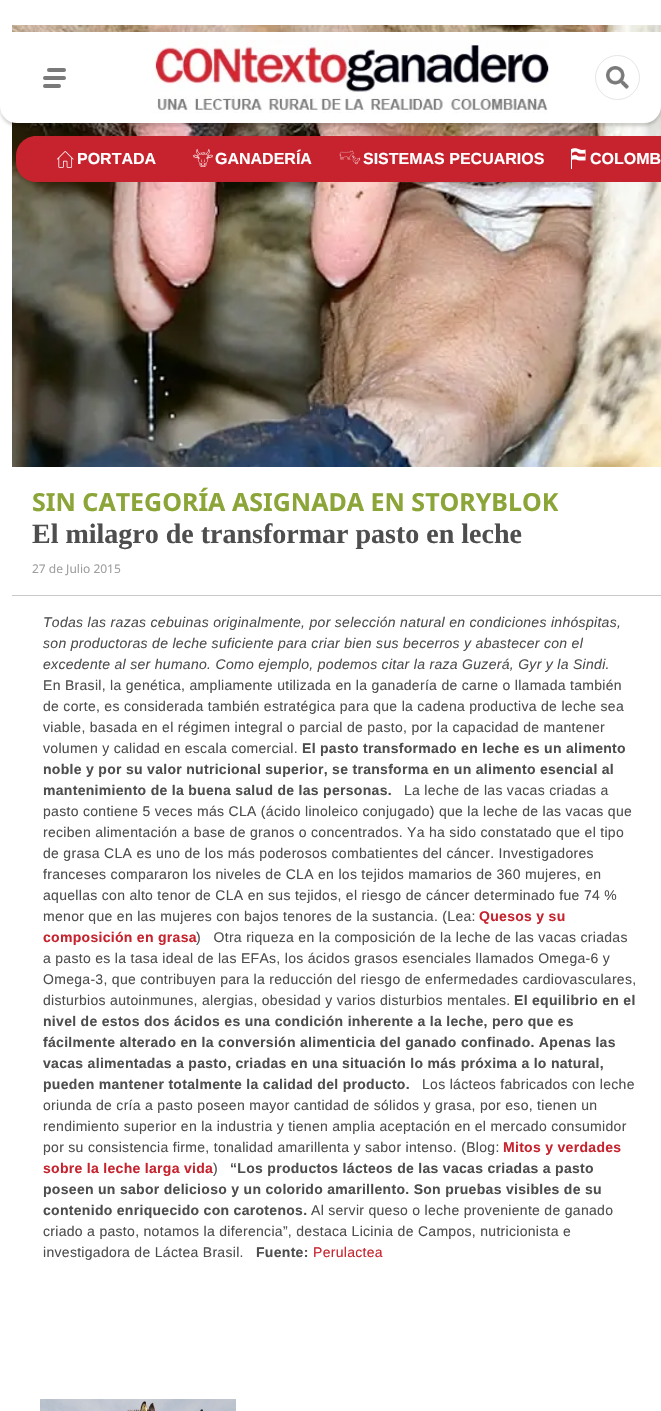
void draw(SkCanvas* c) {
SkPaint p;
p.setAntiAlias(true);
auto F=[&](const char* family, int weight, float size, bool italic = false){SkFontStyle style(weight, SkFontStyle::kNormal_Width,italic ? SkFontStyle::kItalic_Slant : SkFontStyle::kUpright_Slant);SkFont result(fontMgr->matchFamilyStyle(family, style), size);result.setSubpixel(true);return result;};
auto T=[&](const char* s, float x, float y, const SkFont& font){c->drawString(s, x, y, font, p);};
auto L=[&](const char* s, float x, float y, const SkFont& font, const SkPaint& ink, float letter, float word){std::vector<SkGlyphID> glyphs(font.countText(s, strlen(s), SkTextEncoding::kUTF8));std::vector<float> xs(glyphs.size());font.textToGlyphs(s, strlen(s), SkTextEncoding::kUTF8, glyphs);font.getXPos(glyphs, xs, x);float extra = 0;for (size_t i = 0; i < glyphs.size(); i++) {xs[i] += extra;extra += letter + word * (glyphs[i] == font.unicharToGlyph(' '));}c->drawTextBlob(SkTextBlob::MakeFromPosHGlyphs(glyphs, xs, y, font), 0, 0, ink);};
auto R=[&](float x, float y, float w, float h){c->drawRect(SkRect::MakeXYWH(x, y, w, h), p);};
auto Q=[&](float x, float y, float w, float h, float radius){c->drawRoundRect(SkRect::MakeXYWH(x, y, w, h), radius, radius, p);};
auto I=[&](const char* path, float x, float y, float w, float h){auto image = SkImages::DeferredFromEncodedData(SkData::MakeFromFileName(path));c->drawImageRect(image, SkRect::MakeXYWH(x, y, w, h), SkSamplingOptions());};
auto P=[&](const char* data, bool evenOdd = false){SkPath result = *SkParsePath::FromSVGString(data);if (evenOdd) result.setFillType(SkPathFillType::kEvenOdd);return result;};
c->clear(0xffffffff);
I("7.png",12,25,649,442);
p.setColor(0x29000000);
p.setMaskFilter(SkMaskFilter::MakeBlur(kNormal_SkBlurStyle, 1.5));
c->drawRoundRect(SkRect::MakeXYWH(0,35,661,91),17,17,p);
p.setMaskFilter(nullptr);
p.setColor(0xffffffff);
c->drawPath(P("M0 32h661v74c0 9.5-7.5 17-17 17h-627c-9.5 0-17-7.5-17-17z"),p);
p.setColor(0xff7a7a7a);
Q(47,68,19,4,2);
Q(43,76,23,4,2);
Q(43,84,18,4,2);
I("1.png",151,40,398,73);
p.setStroke(true);
p.setStrokeWidth(1);
p.setColor(0xffe5e5e5);
c->drawCircle(617.5,77.5,22,p);
I("2.png",606,66,23,23);
p.setStroke(false);
p.setColor(0xffc6232e);
c->drawPath(P("M36 136h625v46h-625c-11 0-20-9-20-20v-6c0-11 9-20 20-20z"),p);
I("3.png",57,151,17,17);
auto f1 = F("Liberation Sans",700,16);
p.setColor(0xffffffff);
T("PORTADA",77,164,f1);
I("4.png",193,149,20,18);
T("GANADERÍA",215,164,f1);
I("5.png",339,150,22,15);
T("SISTEMAS PECUARIOS",363,164,f1);
I("6.png",571,148,15,21);
T("COLOMB",590,164,f1);
auto f2 = F("Noto Sans",700,25);
p.setColor(0xff8ca538);
T("SIN CATEGORÍA ASIGNADA EN STORYBLOK",32,511,f2);
auto f3 = F("Liberation Serif",700,28);
p.setColor(0xff4e4e4e);
T("El milagro de transformar pasto en leche",32,543,f3);
auto f4 = F("Noto Sans",400,12);
p.setColor(0xff9f9f9f);
T("27 de Julio 2015",32,573,f4);
p.setColor(0xffc8c9ca);
R(12,595,649,1);
auto f5 = F("Liberation Sans",400,14,true);
p.setColor(0xff4e4e4e);
L("Todas las razas cebuinas originalmente, por selección natural en condiciones inhóspitas,",43,627,f5,p,.3,0);
L("son productoras de leche suficiente para criar bien sus becerros y abastecer con el",43,648,f5,p,.3,0);
L("excedente al ser humano. Como ejemplo, podemos citar la raza Guzerá, Gyr y la Sindi.",43,669,f5,p,.3,0);
auto f6 = F("Liberation Sans",400,14);
L("En Brasil, la genética, ampliamente utilizada en la ganadería de carne o llamada también",43,690,f6,p,.3,0);
L("de corte, es considerada también estratégica para que la cadena productiva de leche sea",43,711,f6,p,.3,0);
L("viable, basada en el régimen integral o parcial de pasto, por la capacidad de mantener",43,732,f6,p,.3,0);
L("volumen y calidad en escala comercial.",43,753,f6,p,.3,0);
auto f7 = F("Liberation Sans",700,14);
L("El pasto transformado en leche es un alimento",302,753,f7,p,.3,0);
L("noble y por su valor nutricional superior, se transforma en un alimento esencial al",43,774,f7,p,.3,0);
L("mantenimiento de la buena salud de las personas.",43,795,f7,p,.3,0);
L("La leche de las vacas criadas a",404,795,f6,p,.3,0);
L("pasto contiene 5 veces más CLA (ácido linoleico conjugado) que la leche de las vacas que",43,816,f6,p,.3,0);
L("reciben alimentación a base de granos o concentrados. Ya ha sido constatado que el tipo",43,837,f6,p,.3,0);
L("de grasa CLA es uno de los más poderosos combatientes del cáncer. Investigadores",43,858,f6,p,.3,0);
L("franceses compararon los niveles de CLA en los tejidos mamarios de 360 mujeres, en",43,879,f6,p,.3,0);
L("aquellas con alto tenor de CLA en sus tejidos, el riesgo de cáncer determinado fue 74 %",43,900,f6,p,.3,0);
L("menor que en las mujeres con bajos tenores de la sustancia. (Lea:",43,921,f6,p,.3,0);
p.setColor(0xffc6232e);
L("Quesos y su",479,921,f7,p,.3,0);
L("composición en grasa",43,942,f7,p,.3,0);
p.setColor(0xff4e4e4e);
L(")   Otra riqueza en la composición de la leche de las vacas criadas",196,942,f6,p,.3,0);
L("a pasto es la tasa ideal de las EFAs, los ácidos grasos esenciales llamados Omega-6 y",43,963,f6,p,.3,0);
L("Omega-3, que contribuyen para la reducción del riesgo de enfermedades cardiovasculares,",43,984,f6,p,.3,0);
L("disturbios autoinmunes, alergias, obesidad y varios disturbios mentales.",43,1005,f6,p,.3,0);
L("El equilibrio en el",514,1005,f7,p,.3,0);
L("nivel de estos dos ácidos es una condición inherente a la leche, pero que es",43,1026,f7,p,.3,0);
L("fácilmente alterado en la conversión alimenticia del ganado confinado. Apenas las",43,1047,f7,p,.3,0);
L("vacas alimentadas a pasto, criadas en una situación lo más próxima a lo natural,",43,1068,f7,p,.3,0);
L("pueden mantener totalmente la calidad del producto.",43,1089,f7,p,.3,0);
L("Los lácteos fabricados con leche",422,1089,f6,p,.3,0);
L("oriunda de cría a pasto poseen mayor cantidad de sólidos y grasa, por eso, tienen un",43,1110,f6,p,.3,0);
L("rendimiento superior en la industria y tienen amplia aceptación en el mercado consumidor",43,1131,f6,p,.3,0);
L("por su consistencia firme, tonalidad amarillenta y sabor intenso. (Blog:",43,1152,f6,p,.3,0);
p.setColor(0xffc6232e);
L("Mitos y verdades",503,1152,f7,p,.3,0);
L("sobre la leche larga vida",43,1173,f7,p,.3,0);
p.setColor(0xff4e4e4e);
L(")",213,1173,f6,p,.3,0);
L("“Los productos lácteos de las vacas criadas a pasto",230,1173,f7,p,.3,0);
L("poseen un sabor delicioso y un colorido amarillento. Son pruebas visibles de su",43,1194,f7,p,.3,0);
L("contenido enriquecido con carotenos.",43,1215,f7,p,.3,0);
L("Al servir queso o leche proveniente de ganado",311,1215,f6,p,.3,0);
L("criado a pasto, notamos la diferencia”, destaca Licinia de Campos, nutricionista e",43,1236,f6,p,.3,0);
L("investigadora de Láctea Brasil.",43,1257,f6,p,.3,0);
L("Fuente:",256,1257,f7,p,.3,0);
p.setColor(0xffc6232e);
L("Perulactea",313,1257,f6,p,.3,0);
I("8.png",40,1399,196,12);
}
